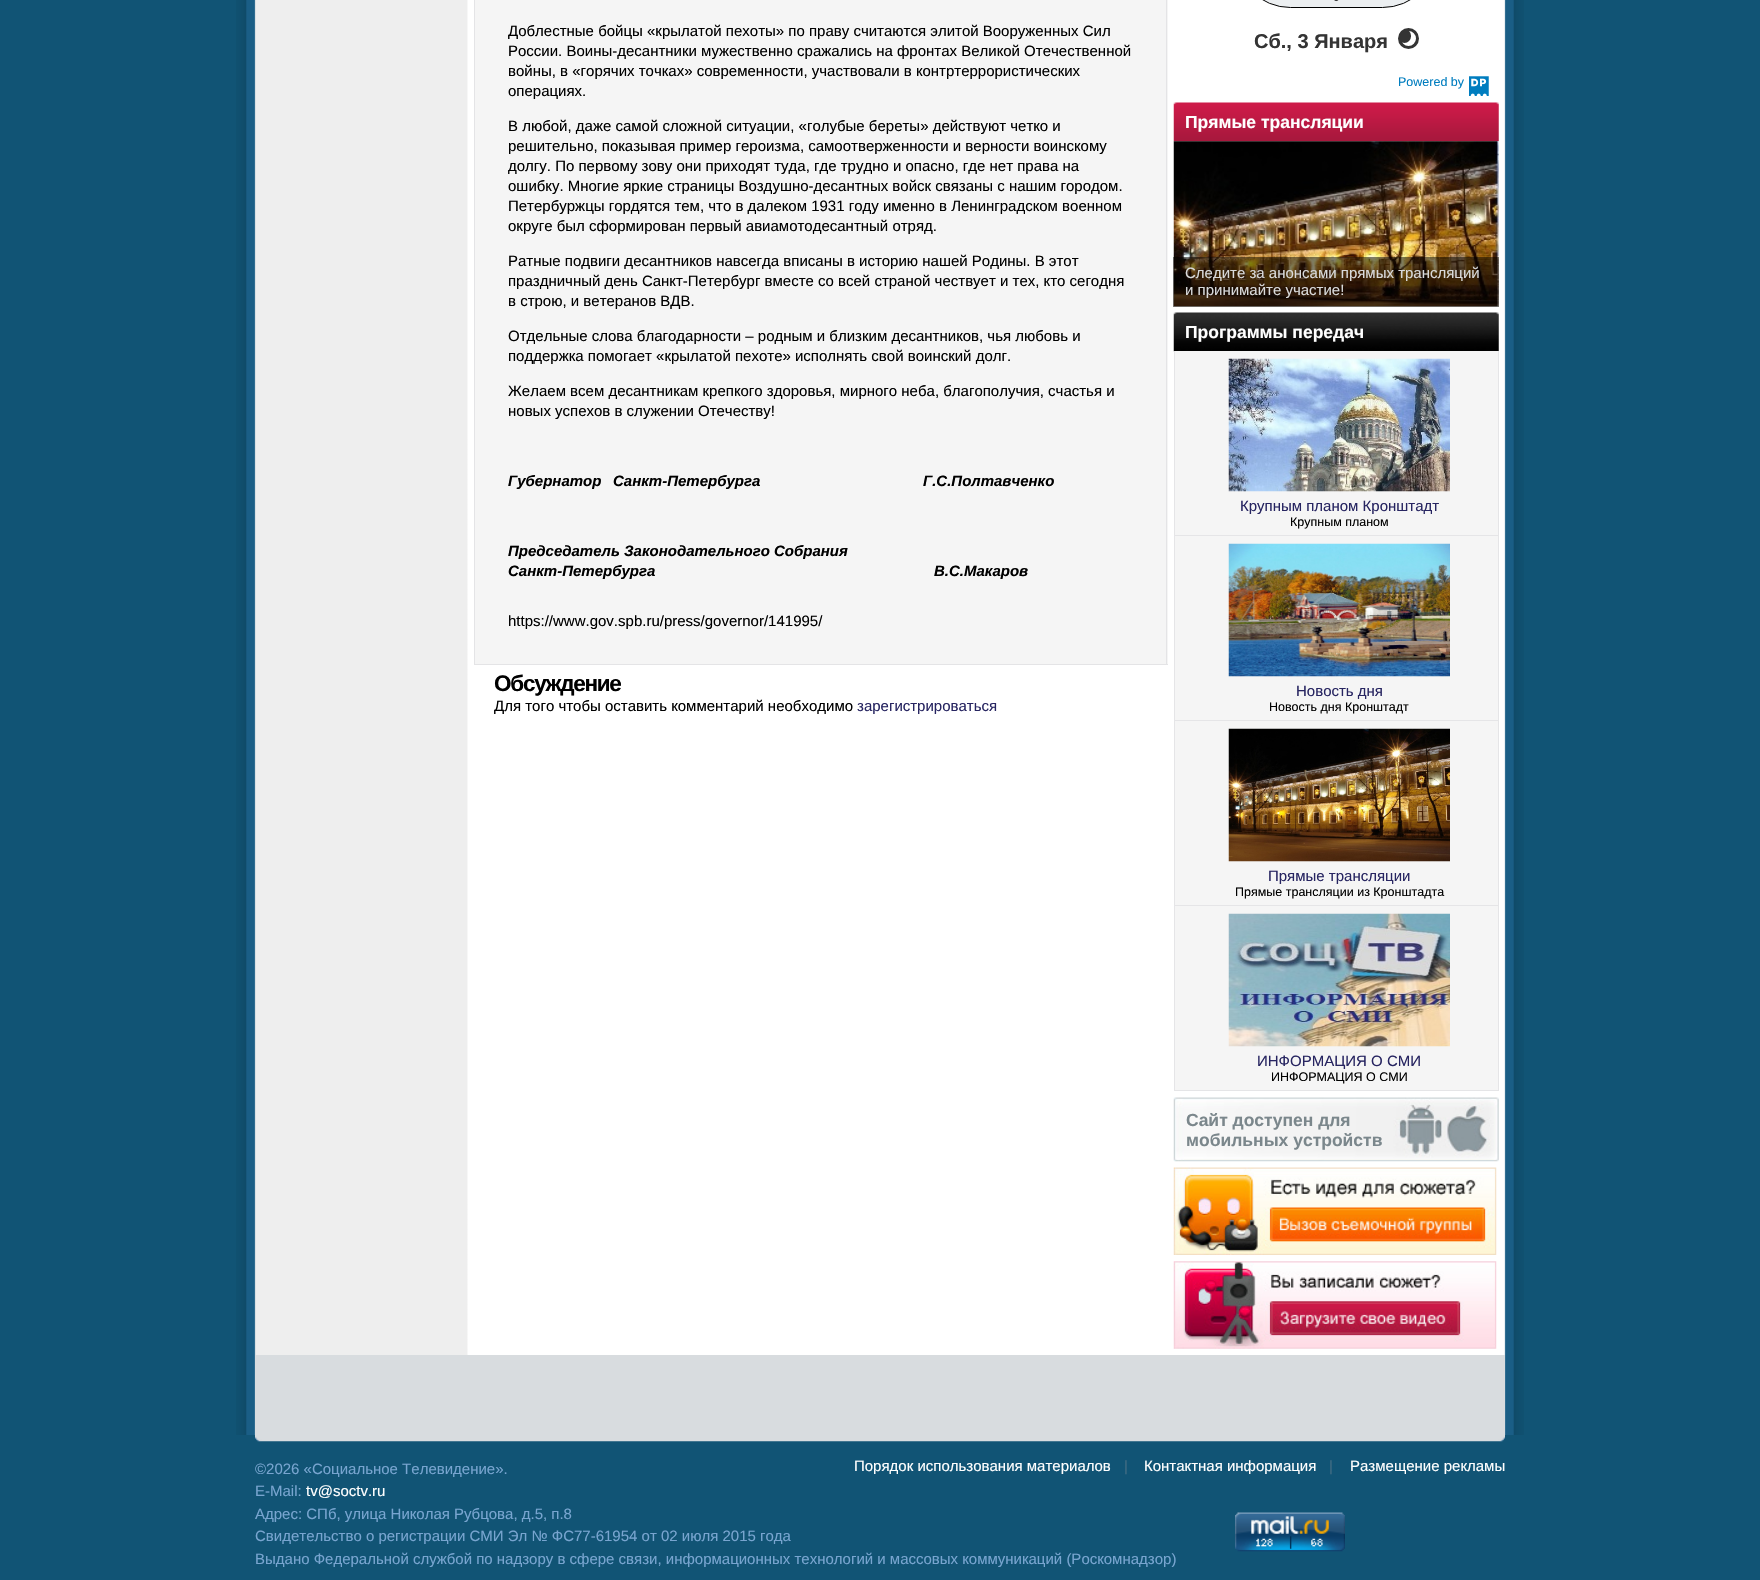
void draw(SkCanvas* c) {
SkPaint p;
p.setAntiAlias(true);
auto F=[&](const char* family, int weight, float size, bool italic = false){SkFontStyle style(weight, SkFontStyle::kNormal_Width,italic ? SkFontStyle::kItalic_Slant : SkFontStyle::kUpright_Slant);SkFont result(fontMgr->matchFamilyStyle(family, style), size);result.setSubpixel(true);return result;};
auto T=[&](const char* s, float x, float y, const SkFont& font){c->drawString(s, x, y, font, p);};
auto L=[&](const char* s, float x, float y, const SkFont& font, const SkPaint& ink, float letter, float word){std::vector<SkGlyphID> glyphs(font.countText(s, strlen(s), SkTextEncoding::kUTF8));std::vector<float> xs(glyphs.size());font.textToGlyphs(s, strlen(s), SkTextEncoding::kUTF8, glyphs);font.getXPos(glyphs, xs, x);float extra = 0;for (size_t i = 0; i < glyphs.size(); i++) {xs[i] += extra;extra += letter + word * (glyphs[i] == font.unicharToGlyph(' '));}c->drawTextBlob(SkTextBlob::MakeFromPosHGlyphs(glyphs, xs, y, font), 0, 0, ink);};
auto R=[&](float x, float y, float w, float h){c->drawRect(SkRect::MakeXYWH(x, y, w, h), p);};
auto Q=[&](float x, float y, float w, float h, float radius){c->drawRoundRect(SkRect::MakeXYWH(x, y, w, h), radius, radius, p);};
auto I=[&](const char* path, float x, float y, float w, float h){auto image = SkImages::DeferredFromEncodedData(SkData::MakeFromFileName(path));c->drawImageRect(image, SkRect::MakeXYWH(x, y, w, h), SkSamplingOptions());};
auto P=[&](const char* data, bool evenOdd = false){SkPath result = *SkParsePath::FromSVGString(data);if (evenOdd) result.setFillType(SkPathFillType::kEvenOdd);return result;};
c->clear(0xff115475);
I("1.png",236,0,1288,1435);
p.setColor(0xfff5f5f5);
R(475,0,693,664);
p.setColor(0xffe4e4e6);
R(1166,0,1,665);
R(474,664,694,1);
R(474,0,1,665);
auto f1 = F("Liberation Sans",400,15);
p.setColor(0xff000000);
T("Доблестные бойцы «крылатой пехоты» по праву считаются элитой Вооруженных Сил",508,36,f1);
T("России. Воины-десантники мужественно сражались на фронтах Великой Отечественной",508,56,f1);
T("войны, в «горячих точках» современности, участвовали в контртеррористических",508,76,f1);
T("операциях.",508,96,f1);
T("В любой, даже самой сложной ситуации, «голубые береты» действуют четко и",508,131,f1);
T("решительно, показывая пример героизма, самоотверженности и верности воинскому",508,151,f1);
T("долгу. По первому зову они приходят туда, где трудно и опасно, где нет права на",508,171,f1);
T("ошибку. Многие яркие страницы Воздушно-десантных войск связаны с нашим городом.",508,191,f1);
T("Петербуржцы гордятся тем, что в далеком 1931 году именно в Ленинградском военном",508,211,f1);
T("округе был сформирован первый авиамотодесантный отряд.",508,231,f1);
T("Ратные подвиги десантников навсегда вписаны в историю нашей Родины. В этот",508,266,f1);
T("праздничный день Санкт-Петербург вместе со всей страной чествует и тех, кто сегодня",508,286,f1);
T("в строю, и ветеранов ВДВ.",508,306,f1);
T("Отдельные слова благодарности – родным и близким десантников, чья любовь и",508,341,f1);
T("поддержка помогает «крылатой пехоте» исполнять свой воинский долг.",508,361,f1);
T("Желаем всем десантникам крепкого здоровья, мирного неба, благополучия, счастья и",508,396,f1);
T("новых успехов в служении Отечеству!",508,416,f1);
auto f2 = F("Liberation Sans",700,15,true);
T("Губернатор",508,486,f2);
T("Санкт-Петербурга",613,486,f2);
T("Г.С.Полтавченко",923,486,f2);
T("Председатель Законодательного Собрания",508,556,f2);
T("Санкт-Петербурга",508,576,f2);
T("В.С.Макаров",934,576,f2);
T("https://www.gov.spb.ru/press/governor/141995/",508,626,f1);
auto f3 = F("Liberation Sans",700,22.5);
L("Обсуждение",494,691,f3,p,-1.25,0);
T("Для того чтобы оставить комментарий необходимо",494,711,f1);
p.setColor(0xff272561);
T("зарегистрироваться",857,711,f1);
p.setColor(0xffeceff1);
c->drawRoundRect(SkRect::MakeXYWH(1235.5,-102.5,202,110),101,101,p);
p.setStroke(true);
p.setStrokeWidth(1);
p.setColor(0xff000000);
c->drawRoundRect(SkRect::MakeXYWH(1235.5,-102.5,202,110),101,101,p);
I("2.png",1334,0,5,2);
auto f4 = F("Liberation Sans",700,20);
p.setStroke(false);
p.setColor(0xff343434);
T("Сб., 3 Января",1254,48,f4);
p.setStroke(true);
p.setStrokeWidth(3);
c->drawCircle(1408.5,38.5,9,p);
c->save();
c->clipPath(P("M1408 30c4.5 0 8 3.5 8 8c0 4.5-3.5 8-8 8c-4.5 0-8-3.5-8-8c0-4.5 3.5-8 8-8z"),true);
p.setStroke(false);
Q(1398,29,13,14,6.5);
c->restore();
auto f5 = F("Liberation Sans",400,12.5);
p.setColor(0xff007dbf);
T("Powered by",1398,86,f5);
I("3.png",1469,76,20,20);
I("4.png",1173,102,326,40);
auto f6 = F("Liberation Sans",700,17.5);
p.setColor(0xffffffff);
T("Прямые трансляции",1185,128,f6);
I("5.png",1173,141,326,166);
p.setColor(0x80000000);
R(1173,257,326,50);
p.setColor(0xffd9dadb);
T("Следите за анонсами прямых трансляций",1185,278,f1);
T("и принимайте участие!",1185,295,f1);
I("6.png",1173,312,326,40);
p.setColor(0xffffffff);
T("Программы передач",1185,338,f6);
p.setColor(0xfff5f5f5);
R(1175,351,323,184);
p.setColor(0xffe5e5e7);
R(1498,351,1,740);
R(1174,535,325,1);
R(1174,351,1,185);
I("7.png",1228,358,222,134);
p.setColor(0xff272561);
T("Крупным планом Кронштадт",1240,511,f1);
p.setColor(0xff000000);
T("Крупным планом",1290,526,f5);
p.setColor(0xfff5f5f5);
R(1175,536,323,184);
p.setColor(0xffe5e5e7);
R(1174,720,325,1);
R(1174,536,1,185);
I("8.png",1228,543,222,134);
p.setColor(0xff272561);
T("Новость дня",1296,696,f1);
p.setColor(0xff000000);
T("Новость дня Кронштадт",1269,711,f5);
p.setColor(0xfff5f5f5);
R(1175,721,323,184);
p.setColor(0xffe5e5e7);
R(1174,905,325,1);
R(1174,721,1,185);
I("9.png",1228,728,222,134);
p.setColor(0xff272561);
T("Прямые трансляции",1268,881,f1);
p.setColor(0xff000000);
T("Прямые трансляции из Кронштадта",1235,896,f5);
p.setColor(0xfff5f5f5);
R(1175,906,323,184);
p.setColor(0xffe5e5e7);
R(1174,1090,325,1);
R(1174,906,1,185);
I("10.png",1228,913,222,134);
p.setColor(0xff272561);
T("ИНФОРМАЦИЯ О СМИ",1257,1066,f1);
p.setColor(0xff000000);
T("ИНФОРМАЦИЯ О СМИ",1271,1081,f5);
I("11.png",1173,1097,326,65);
p.setColor(0xff7b878c);
T("Сайт доступен для",1186,1126,f6);
T("мобильных устройств",1186,1146,f6);
I("12.png",1173,1167,324,88);
I("13.png",1173,1261,324,88);
I("14.png",255,1355,1250,87);
p.setColor(0xff78a5d0);
T("©2026 «Социальное Телевидение».",255,1474,f1);
T("E-Mail:",255,1496,f1);
p.setColor(0xffffffff);
T("tv@soctv.ru",306,1496,f1);
p.setColor(0xff78a5d0);
T("Адрес: СПб, улица Николая Рубцова, д.5, п.8",255,1519,f1);
T("Свидетельство о регистрации СМИ Эл № ФС77-61954 от 02 июля 2015 года",255,1541,f1);
T("Выдано Федеральной службой по надзору в сфере связи, информационных технологий и массовых коммуникаций (Роскомнадзор)",255,1564,f1);
p.setColor(0xffffffff);
T("Порядок использования материалов",854,1471,f1);
p.setColor(0xff426c83);
T("|",1124,1471,f1);
p.setColor(0xffffffff);
T("Контактная информация",1144,1471,f1);
p.setColor(0xff426c83);
T("|",1329,1471,f1);
p.setColor(0xffffffff);
T("Размещение рекламы",1350,1471,f1);
I("15.png",1235,1512,110,40);
}
